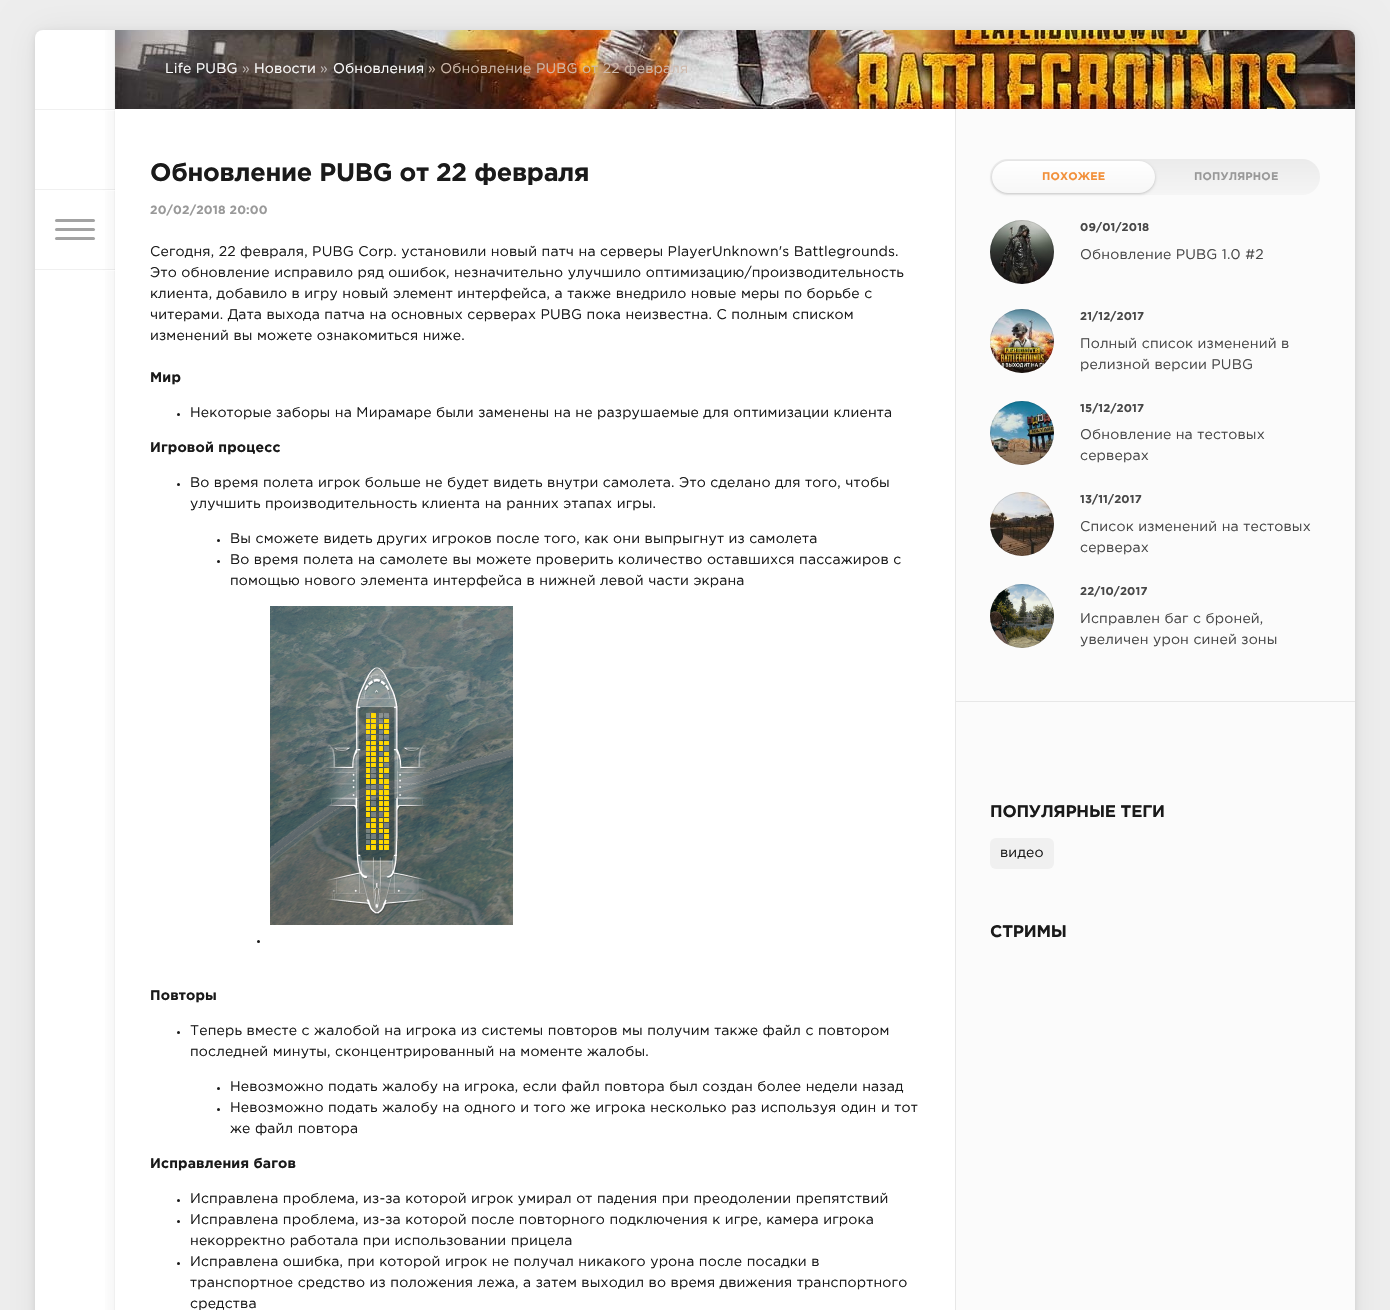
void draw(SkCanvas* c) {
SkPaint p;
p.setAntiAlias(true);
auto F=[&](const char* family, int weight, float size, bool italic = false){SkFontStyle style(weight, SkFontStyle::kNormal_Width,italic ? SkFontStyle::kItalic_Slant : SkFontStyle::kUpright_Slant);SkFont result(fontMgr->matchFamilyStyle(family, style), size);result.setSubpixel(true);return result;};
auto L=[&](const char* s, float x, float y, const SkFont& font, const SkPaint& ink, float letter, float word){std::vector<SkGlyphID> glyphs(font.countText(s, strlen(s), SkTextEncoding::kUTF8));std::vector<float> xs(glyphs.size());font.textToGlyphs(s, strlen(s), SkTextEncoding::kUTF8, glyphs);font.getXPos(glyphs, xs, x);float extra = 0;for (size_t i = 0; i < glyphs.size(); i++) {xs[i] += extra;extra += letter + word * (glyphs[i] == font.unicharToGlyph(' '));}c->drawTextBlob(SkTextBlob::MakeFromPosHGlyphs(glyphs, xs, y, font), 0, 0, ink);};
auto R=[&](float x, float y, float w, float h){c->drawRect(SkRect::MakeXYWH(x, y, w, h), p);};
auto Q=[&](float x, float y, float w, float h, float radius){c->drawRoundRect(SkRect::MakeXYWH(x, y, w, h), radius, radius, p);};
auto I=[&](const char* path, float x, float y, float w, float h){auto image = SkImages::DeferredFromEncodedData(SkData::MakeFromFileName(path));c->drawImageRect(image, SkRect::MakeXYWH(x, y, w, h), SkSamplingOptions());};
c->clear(0xffeeeeee);
p.setColor(0x0f000000);
p.setMaskFilter(SkMaskFilter::MakeBlur(kNormal_SkBlurStyle, 17.5));
c->drawRoundRect(SkRect::MakeXYWH(35,30,1320,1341),8,8,p);
p.setMaskFilter(nullptr);
p.setColor(0x1c000000);
p.setMaskFilter(SkMaskFilter::MakeBlur(kNormal_SkBlurStyle, 3));
c->drawRoundRect(SkRect::MakeXYWH(35,32,1320,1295),8,8,p);
p.setMaskFilter(nullptr);
p.setColor(0xffffffff);
Q(35,30,1320,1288,8);
p.setColor(0xfff0f0f0);
R(35,269,66,1);
R(35,189,66,1);
R(35,109,66,1);
p.setColor(0xffa3a3a3);
Q(55,219,40,3,1.5);
Q(55,228,40,3,1.5);
Q(55,237,40,3,1.5);
{
const SkColor colors[] = {0xffffffff,0xfff7f7f7};
const float stops[] = {0,1};
const SkPoint ends[] = {{101,1285}, {114,1285}};
p.setShader(SkGradientShader::MakeLinear(ends, colors, stops, 2, SkTileMode::kClamp));
p.setAlpha(255);
}
R(105,30,9,1280);
{
const SkColor colors[] = {0xfff0f0f0,0xffe8e8e8};
const float stops[] = {0,1};
const SkPoint ends[] = {{101,1285}, {114,1285}};
p.setShader(SkGradientShader::MakeLinear(ends, colors, stops, 2, SkTileMode::kClamp));
p.setAlpha(255);
}
R(101,269,13,1);
{
const SkColor colors[] = {0xffffffff,0xfffcfcfc};
const float stops[] = {0,1};
const SkPoint ends[] = {{101,1285}, {114,1285}};
p.setShader(SkGradientShader::MakeLinear(ends, colors, stops, 2, SkTileMode::kClamp));
p.setAlpha(255);
}
R(101,270,13,1);
{
const SkColor colors[] = {0xfff0f0f0,0xffe8e8e8};
const float stops[] = {0,1};
const SkPoint ends[] = {{101,1285}, {114,1285}};
p.setShader(SkGradientShader::MakeLinear(ends, colors, stops, 2, SkTileMode::kClamp));
p.setAlpha(255);
}
R(101,189,13,1);
{
const SkColor colors[] = {0xffffffff,0xfffcfcfc};
const float stops[] = {0,1};
const SkPoint ends[] = {{101,1285}, {114,1285}};
p.setShader(SkGradientShader::MakeLinear(ends, colors, stops, 2, SkTileMode::kClamp));
p.setAlpha(255);
}
R(101,190,13,1);
{
const SkColor colors[] = {0xfff0f0f0,0xffe8e8e8};
const float stops[] = {0,1};
const SkPoint ends[] = {{101,1285}, {114,1285}};
p.setShader(SkGradientShader::MakeLinear(ends, colors, stops, 2, SkTileMode::kClamp));
p.setAlpha(255);
}
R(101,109,13,1);
{
const SkColor colors[] = {0xffffffff,0xfffcfcfc};
const float stops[] = {0,1};
const SkPoint ends[] = {{101,1285}, {114,1285}};
p.setShader(SkGradientShader::MakeLinear(ends, colors, stops, 2, SkTileMode::kClamp));
p.setAlpha(255);
}
R(101,110,13,1);
p.setShader(nullptr);
p.setColor(0xfff0f0f0);
R(114,30,1,1280);
p.setColor(0xffe2e2e2);
R(114,269,1,1);
p.setColor(0xfff9f9f9);
R(114,270,1,1);
p.setColor(0xffe2e2e2);
R(114,189,1,1);
p.setColor(0xfff9f9f9);
R(114,190,1,1);
p.setColor(0xffe2e2e2);
R(114,109,1,1);
p.setColor(0xfff9f9f9);
R(114,110,1,1);
I("1.png",115,30,1240,79);
auto f1 = F("Gotham",400,14);
p.setColor(0xffffffff);
L("Life PUBG",165,73,f1,p,.17,0);
p.setColor(0xffbbb5b2);
L("»",242,73,f1,p,.17,0);
p.setColor(0xffffffff);
L("Новости",254,73,f1,p,.17,0);
p.setColor(0xffbbb5b2);
L("»",320,73,f1,p,.17,0);
p.setColor(0xffffffff);
L("Обновления",333,73,f1,p,.17,0);
p.setColor(0xffcfbaac);
L("» Обновление PUBG от 22 февраля",428,73,f1,p,.17,0);
auto f2 = F("Gotham",700,25.25);
p.setColor(0xff1a1a1a);
L("Обновление PUBG от 22 февраля",150,181,f2,p,-.25,0);
auto f3 = F("Gotham",700,12);
p.setColor(0xff999999);
L("20/02/2018 20:00",150,214,f3,p,.17,0);
p.setColor(0xff1a1a1a);
L("Сегодня, 22 февраля, PUBG Corp. установили новый патч на серверы PlayerUnknown's Battlegrounds.",150,256,f1,p,.17,0);
L("Это обновление исправило ряд ошибок, незначительно улучшило оптимизацию/производительность",150,277,f1,p,.17,0);
L("клиента, добавило в игру новый элемент интерфейса, а также внедрило новые меры по борьбе с",150,298,f1,p,.17,0);
L("читерами. Дата выхода патча на основных серверах PUBG пока неизвестна. С полным списком",150,319,f1,p,.17,0);
L("изменений вы можете ознакомиться ниже.",150,340,f1,p,.17,0);
auto f4 = F("Gotham",700,14);
L("Мир",150,382,f4,p,.17,0);
c->drawCircle(178.5,414.5,1.5,p);
L("Некоторые заборы на Мирамаре были заменены на не разрушаемые для оптимизации клиента",190,417,f1,p,.17,0);
L("Игровой процесс",150,452,f4,p,.17,0);
c->drawCircle(178.5,484.5,1.5,p);
L("Во время полета игрок больше не будет видеть внутри самолета. Это сделано для того, чтобы",190,487,f1,p,.17,0);
L("улучшить производительность клиента на ранних этапах игры.",190,508,f1,p,.17,0);
c->drawCircle(218.5,540.5,1.5,p);
L("Вы сможете видеть других игроков после того, как они выпрыгнут из самолета",230,543,f1,p,.17,0);
c->drawCircle(218.5,561.5,1.5,p);
L("Во время полета на самолете вы можете проверить количество оставшихся пассажиров с",230,564,f1,p,.17,0);
L("помощью нового элемента интерфейса в нижней левой части экрана",230,585,f1,p,.17,0);
I("2.png",270,606,243,319);
c->drawCircle(258.5,941.5,1.5,p);
L("Повторы",150,1000,f4,p,.17,0);
c->drawCircle(178.5,1032.5,1.5,p);
L("Теперь вместе с жалобой на игрока из системы повторов мы получим также файл с повтором",190,1035,f1,p,.17,0);
L("последней минуты, сконцентрированный на моменте жалобы.",190,1056,f1,p,.17,0);
c->drawCircle(218.5,1088.5,1.5,p);
L("Невозможно подать жалобу на игрока, если файл повтора был создан более недели назад",230,1091,f1,p,.17,0);
c->drawCircle(218.5,1109.5,1.5,p);
L("Невозможно подать жалобу на одного и того же игрока несколько раз используя один и тот",230,1112,f1,p,.17,0);
L("же файл повтора",230,1133,f1,p,.17,0);
L("Исправления багов",150,1168,f4,p,.17,0);
c->drawCircle(178.5,1200.5,1.5,p);
L("Исправлена проблема, из-за которой игрок умирал от падения при преодолении препятствий",190,1203,f1,p,.17,0);
c->drawCircle(178.5,1221.5,1.5,p);
L("Исправлена проблема, из-за которой после повторного подключения к игре, камера игрока",190,1224,f1,p,.17,0);
L("некорректно работала при использовании прицела",190,1245,f1,p,.17,0);
c->drawCircle(178.5,1263.5,1.5,p);
L("Исправлена ошибка, при которой игрок не получал никакого урона после посадки в",190,1266,f1,p,.17,0);
L("транспортное средство из положения лежа, а затем выходил во время движения транспортного",190,1287,f1,p,.17,0);
L("средства",190,1308,f1,p,.17,0);
p.setColor(0xfffbfbfb);
R(956,109,399,1201);
p.setColor(0xffe7e7e7);
R(955,701,400,1);
R(955,109,1,1201);
{
const SkColor colors[] = {0xffebebeb,0xfff5f5f5};
const float stops[] = {0,1};
const SkPoint ends[] = {{1155,159}, {1155,195}};
p.setShader(SkGradientShader::MakeLinear(ends, colors, stops, 2, SkTileMode::kClamp));
p.setAlpha(255);
}
Q(990,159,330,36,18);
p.setShader(nullptr);
p.setColor(0x33000000);
p.setMaskFilter(SkMaskFilter::MakeBlur(kNormal_SkBlurStyle, 1.5));
c->drawRoundRect(SkRect::MakeXYWH(992,162,163,32),16,16,p);
p.setMaskFilter(nullptr);
{
const SkColor colors[] = {0xffffffff,0xfff7f7f7};
const float stops[] = {0,1};
const SkPoint ends[] = {{1074,161}, {1074,193}};
p.setShader(SkGradientShader::MakeLinear(ends, colors, stops, 2, SkTileMode::kClamp));
p.setAlpha(255);
}
Q(992,161,163,32,16);
auto f5 = F("Gotham",700,11);
p.setShader(nullptr);
p.setColor(0xfff2903a);
L("ПОХОЖЕЕ",1042,180,f5,p,.17,0);
p.setColor(0xff999999);
L("ПОПУЛЯРНОЕ",1194,180,f5,p,.17,0);
p.setColor(0xffffffff);
c->drawCircle(1022,252,32,p);
I("3.png",990,220,64,64);
p.setStroke(true);
p.setStrokeWidth(1);
p.setColor(0x1a000000);
c->drawCircle(1022,252,31.5,p);
auto f6 = F("Gotham",700,11.25);
p.setStroke(false);
p.setColor(0xff474747);
L("09/01/2018",1080,231,f6,p,.17,0);
L("Обновление PUBG 1.0 #2",1080,259,f1,p,.17,0);
p.setColor(0xffffffff);
c->drawCircle(1022,341,32,p);
I("4.png",990,309,64,64);
p.setStroke(true);
p.setColor(0x1a000000);
c->drawCircle(1022,341,31.5,p);
p.setStroke(false);
p.setColor(0xff474747);
L("21/12/2017",1080,320,f6,p,.17,0);
L("Полный список изменений в",1080,348,f1,p,.17,0);
L("релизной версии PUBG",1080,369,f1,p,.17,0);
p.setColor(0xffffffff);
c->drawCircle(1022,433,32,p);
I("5.png",990,401,64,64);
p.setStroke(true);
p.setColor(0x1a000000);
c->drawCircle(1022,433,31.5,p);
p.setStroke(false);
p.setColor(0xff474747);
L("15/12/2017",1080,412,f6,p,.17,0);
L("Обновление на тестовых",1080,439,f1,p,.17,0);
L("серверах",1080,460,f1,p,.17,0);
p.setColor(0xffffffff);
c->drawCircle(1022,524,32,p);
I("6.png",990,492,64,64);
p.setStroke(true);
p.setColor(0x1a000000);
c->drawCircle(1022,524,31.5,p);
p.setStroke(false);
p.setColor(0xff474747);
L("13/11/2017",1080,503,f6,p,.17,0);
L("Список изменений на тестовых",1080,531,f1,p,.17,0);
L("серверах",1080,552,f1,p,.17,0);
p.setColor(0xffffffff);
c->drawCircle(1022,616,32,p);
I("7.png",990,584,64,64);
p.setStroke(true);
p.setColor(0x1a000000);
c->drawCircle(1022,616,31.5,p);
p.setStroke(false);
p.setColor(0xff474747);
L("22/10/2017",1080,595,f6,p,.17,0);
L("Исправлен баг с броней,",1080,623,f1,p,.17,0);
L("увеличен урон синей зоны",1080,644,f1,p,.17,0);
auto f7 = F("Gotham",700,16.75);
p.setColor(0xff1a1a1a);
L("ПОПУЛЯРНЫЕ ТЕГИ",990,817,f7,p,-.2,0);
p.setColor(0xfff0f0f0);
Q(990,838,64,31,6);
p.setColor(0xff1a1a1a);
L("видео",1000,857,f1,p,.17,0);
L("СТРИМЫ",990,937,f7,p,-.2,0);
}
